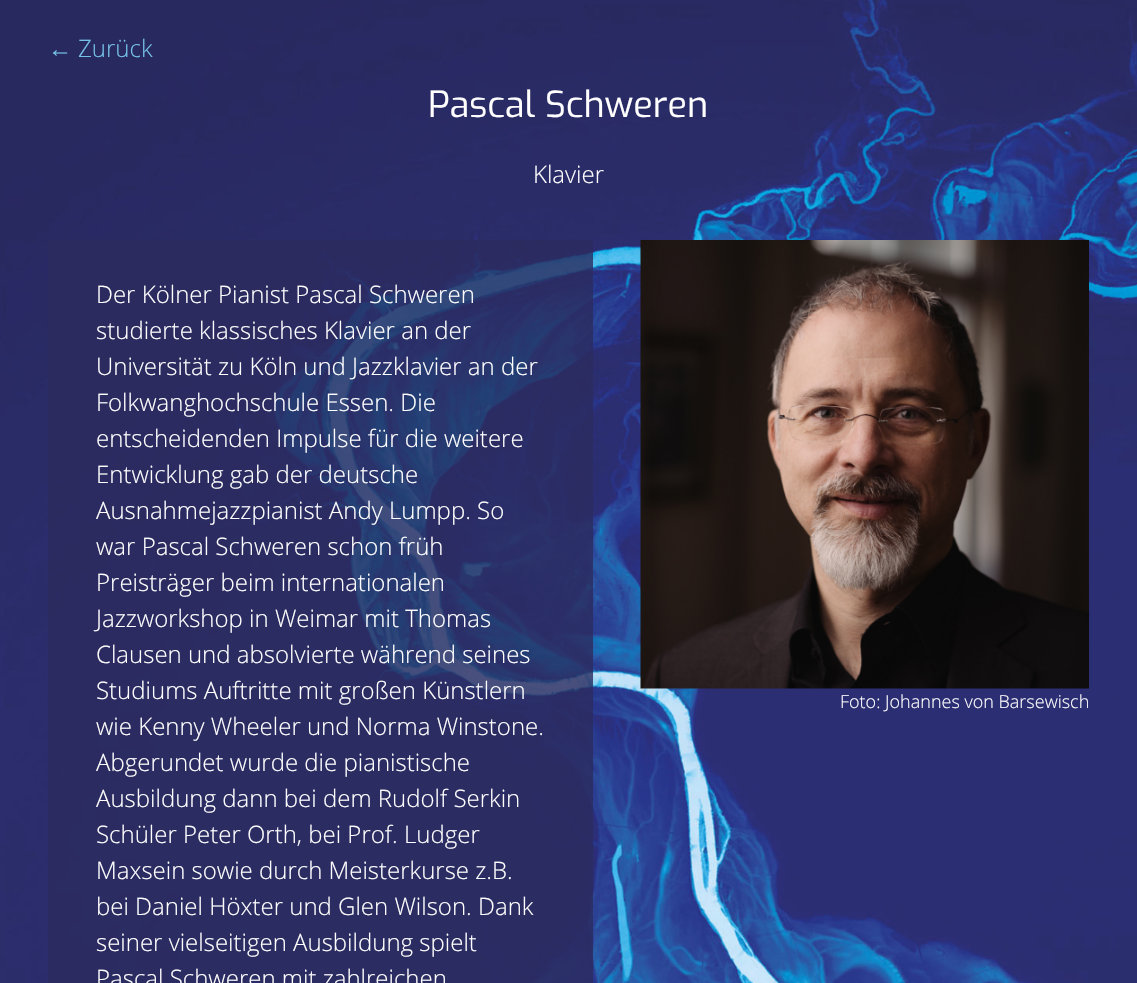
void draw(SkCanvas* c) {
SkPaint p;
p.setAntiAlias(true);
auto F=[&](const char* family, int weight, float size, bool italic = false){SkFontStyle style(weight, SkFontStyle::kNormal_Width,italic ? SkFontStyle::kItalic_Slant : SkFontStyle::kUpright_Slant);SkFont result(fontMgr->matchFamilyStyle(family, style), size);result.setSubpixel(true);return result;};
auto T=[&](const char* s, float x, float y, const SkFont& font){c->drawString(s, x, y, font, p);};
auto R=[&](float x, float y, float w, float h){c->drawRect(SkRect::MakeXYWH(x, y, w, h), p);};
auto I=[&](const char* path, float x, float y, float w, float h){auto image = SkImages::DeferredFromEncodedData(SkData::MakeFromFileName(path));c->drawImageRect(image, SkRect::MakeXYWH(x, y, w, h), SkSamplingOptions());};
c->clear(0xffffffff);
I("1.png",0,0,1137,983);
auto f1 = F("Liberation Serif",400,24);
p.setColor(0xff75c0e6);
T("←",48,57,f1);
auto f2 = F("Open Sans",300,24);
T("Zurück",78,57,f2);
auto f3 = F("Exo",100,36);
p.setColor(0xffffffff);
T("Pascal Schweren",428,117,f3);
T("Klavier",533,183,f2);
p.setColor(0xcc2a2a5e);
R(48,240,545,743);
p.setColor(0xffffffff);
T("Der Kölner Pianist Pascal Schweren",96,303,f2);
T("studierte klassisches Klavier an der",96,339,f2);
T("Universität zu Köln und Jazzklavier an der",96,375,f2);
T("Folkwanghochschule Essen. Die",96,411,f2);
T("entscheidenden Impulse für die weitere",96,447,f2);
T("Entwicklung gab der deutsche",96,483,f2);
T("Ausnahmejazzpianist Andy Lumpp. So",96,519,f2);
T("war Pascal Schweren schon früh",96,555,f2);
T("Preisträger beim internationalen",96,591,f2);
T("Jazzworkshop in Weimar mit Thomas",96,627,f2);
T("Clausen und absolvierte während seines",96,663,f2);
T("Studiums Auftritte mit großen Künstlern",96,699,f2);
T("wie Kenny Wheeler und Norma Winstone.",96,735,f2);
T("Abgerundet wurde die pianistische",96,771,f2);
T("Ausbildung dann bei dem Rudolf Serkin",96,807,f2);
T("Schüler Peter Orth, bei Prof. Ludger",96,843,f2);
T("Maxsein sowie durch Meisterkurse z.B.",96,879,f2);
T("bei Daniel Höxter und Glen Wilson. Dank",96,915,f2);
T("seiner vielseitigen Ausbildung spielt",96,951,f2);
T("Pascal Schweren mit zahlreichen",96,987,f2);
I("2.png",640,240,449,449);
auto f4 = F("Open Sans",300,18);
T("Foto: Johannes von Barsewisch",840,708,f4);
}
